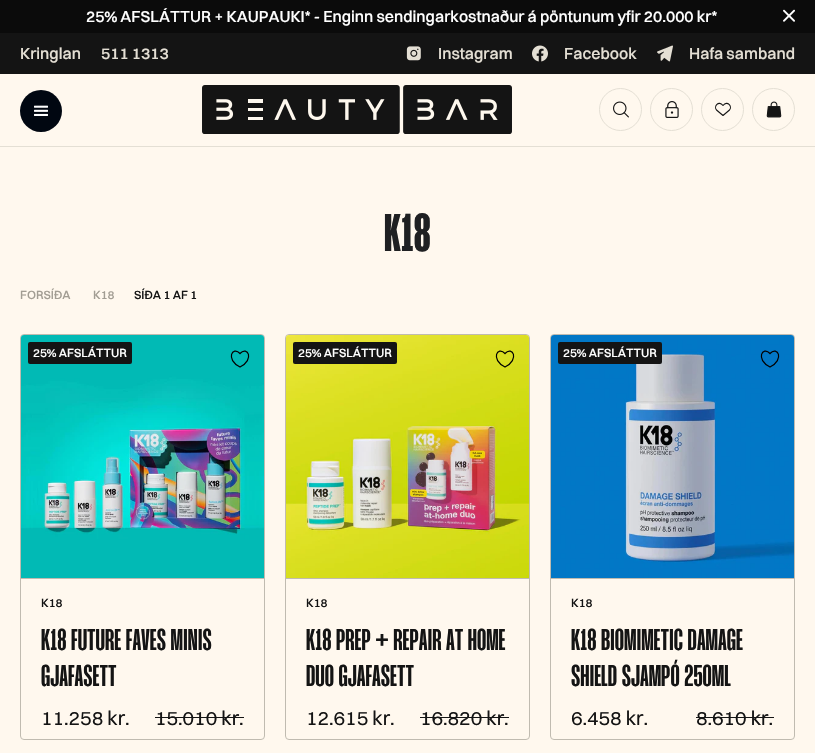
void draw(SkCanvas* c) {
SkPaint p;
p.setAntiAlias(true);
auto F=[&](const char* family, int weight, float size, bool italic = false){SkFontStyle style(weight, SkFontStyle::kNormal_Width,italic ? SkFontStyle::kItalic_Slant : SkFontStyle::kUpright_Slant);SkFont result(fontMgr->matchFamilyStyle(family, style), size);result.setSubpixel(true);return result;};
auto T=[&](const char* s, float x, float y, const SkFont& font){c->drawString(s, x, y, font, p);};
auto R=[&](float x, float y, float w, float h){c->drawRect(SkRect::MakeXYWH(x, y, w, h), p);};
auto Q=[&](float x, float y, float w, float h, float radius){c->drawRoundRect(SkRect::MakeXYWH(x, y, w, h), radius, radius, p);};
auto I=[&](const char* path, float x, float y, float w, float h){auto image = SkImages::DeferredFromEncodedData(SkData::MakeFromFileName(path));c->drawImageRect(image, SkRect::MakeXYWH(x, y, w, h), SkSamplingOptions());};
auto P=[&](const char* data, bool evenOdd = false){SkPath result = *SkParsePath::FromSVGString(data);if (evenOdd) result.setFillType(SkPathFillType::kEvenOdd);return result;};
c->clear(0xfffff8ee);
p.setColor(0xff0b0b0b);
R(0,0,815,33);
auto f1 = F("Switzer",500,16);
p.setColor(0xffffffff);
T("25% AFSLÁTTUR + KAUPAUKI* - Enginn sendingarkostnaður á pöntunum yfir 20.000 kr*",86,22,f1);
I("1.png",783,9,12,13);
p.setColor(0xff141414);
R(0,33,815,41);
p.setColor(0xffe4dfd4);
T("Kringlan",20,59,f1);
T("511 1313",101,59,f1);
I("2.png",406,46,15,15);
T("Instagram",438,59,f1);
I("3.png",532,45,16,17);
T("Facebook",564,59,f1);
I("4.png",657,45,16,17);
T("Hafa samband",689,59,f1);
R(0,146,815,1);
p.setColor(0xff010711);
c->drawCircle(41,111,21,p);
I("5.png",34,105,14,11);
I("6.png",202,85,310,49);
p.setStroke(true);
p.setStrokeWidth(1);
p.setColor(0xffe4dfd4);
c->drawCircle(620.5,109.5,21,p);
I("7.png",613,101,16,17);
c->drawCircle(671.5,109.5,21,p);
I("8.png",665,101,14,17);
c->drawCircle(722.5,109.5,21,p);
p.setStrokeWidth(1.1);
p.setStrokeCap(SkPaint::kRound_Cap);
p.setStrokeJoin(SkPaint::kRound_Join);
p.setColor(0xff141414);
c->drawPath(P("M723 115.5l-6.5-5.5c-3-3.5 2-10 6.5-4.5c4.5-5.5 9.5 1 6.5 4.5z"),p);
p.setStrokeWidth(1);
p.setStrokeCap(SkPaint::kButt_Cap);
p.setStrokeJoin(SkPaint::kMiter_Join);
p.setColor(0xffe4dfd4);
c->drawCircle(773.5,109.5,21,p);
I("9.png",766,101,16,17);
auto f2 = F("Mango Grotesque",700,53);
p.setStroke(false);
p.setColor(0xff1f2022);
T("K18",384,251,f2);
auto f3 = F("Switzer",500,12);
p.setColor(0xffa29d93);
T("FORSÍÐA",20,299,f3);
T("K18",93,299,f3);
p.setColor(0xff141414);
T("SÍÐA 1 AF 1",134,299,f3);
p.setStroke(true);
p.setColor(0xffc0bbb0);
c->drawRoundRect(SkRect::MakeXYWH(20.5,334.5,244,405),3.5,3.5,p);
I("10.png",21,335,243,243);
p.setStroke(false);
p.setColor(0xff141414);
Q(28,342,104,22,2);
p.setColor(0xffffffff);
T("25% AFSLÁTTUR",33,357,f3);
p.setColor(0xffc0bbb0);
R(21,578,243,1);
p.setColor(0xff141414);
T("K18",41,607,f3);
auto f4 = F("Mango Grotesque",600,30);
T("K18 FUTURE FAVES MINIS",41,650,f4);
T("GJAFASETT",41,686,f4);
auto f5 = F("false",400,20);
T("11.258 kr.",41,725,f5);
T("15.010 kr.",155,725,f5);
R(155,717,89,1);
p.setStroke(true);
p.setStrokeWidth(1.2);
p.setColor(0xff000000);
c->drawPath(P("M240 367c-15-7.5-7.5-21.5 0-13.5c7.5-8 15 6 0 13.5z"),p);
p.setStrokeWidth(1);
p.setColor(0xffc0bbb0);
c->drawRoundRect(SkRect::MakeXYWH(285.5,334.5,244,405),3.5,3.5,p);
I("11.png",286,335,243,243);
p.setStroke(false);
p.setColor(0xff141414);
Q(293,342,104,22,2);
p.setColor(0xffffffff);
T("25% AFSLÁTTUR",298,357,f3);
p.setColor(0xffc0bbb0);
R(286,578,243,1);
p.setColor(0xff141414);
T("K18",306,607,f3);
T("K18 PREP + REPAIR AT HOME",306,650,f4);
T("DUO GJAFASETT",306,686,f4);
T("12.615 kr.",306,725,f5);
T("16.820 kr.",420,725,f5);
R(420,717,89,1);
p.setStroke(true);
p.setStrokeWidth(1.2);
p.setColor(0xff000000);
c->drawPath(P("M505 367c-15-7.5-7.5-21.5 0-13.5c7.5-8 15 6 0 13.5z"),p);
p.setStrokeWidth(1);
p.setColor(0xffc0bbb0);
c->drawRoundRect(SkRect::MakeXYWH(550.5,334.5,244,405),3.5,3.5,p);
I("12.png",551,335,243,243);
p.setStroke(false);
p.setColor(0xff141414);
Q(558,342,104,22,2);
p.setColor(0xffffffff);
T("25% AFSLÁTTUR",563,357,f3);
p.setColor(0xffc0bbb0);
R(551,578,243,1);
p.setColor(0xff141414);
T("K18",571,607,f3);
T("K18 BIOMIMETIC DAMAGE",571,650,f4);
T("SHIELD SJAMPÓ 250ML",571,686,f4);
T("6.458 kr.",571,725,f5);
T("8.610 kr.",696,725,f5);
R(696,717,78,1);
p.setStroke(true);
p.setStrokeWidth(1.2);
p.setColor(0xff000000);
c->drawPath(P("M770 367c-15-7.5-7.5-21.5 0-13.5c7.5-8 15 6 0 13.5z"),p);
}
